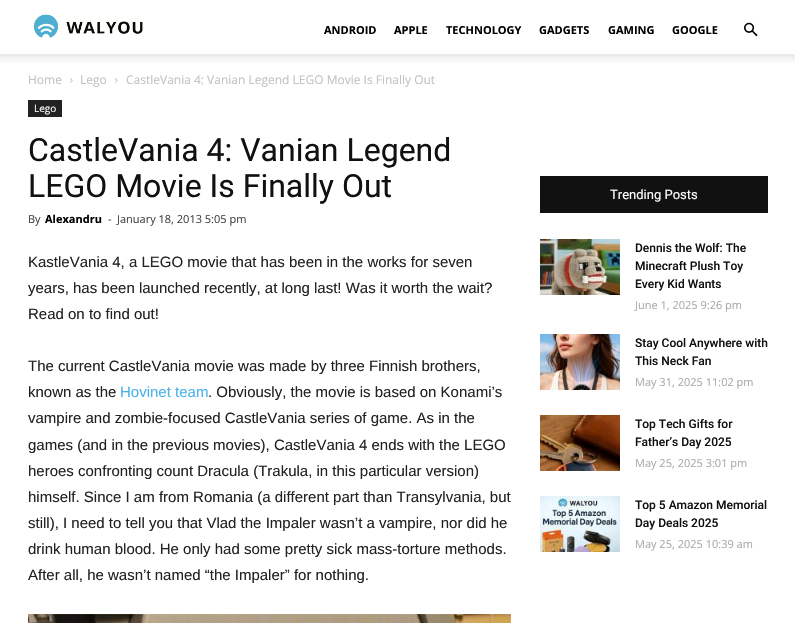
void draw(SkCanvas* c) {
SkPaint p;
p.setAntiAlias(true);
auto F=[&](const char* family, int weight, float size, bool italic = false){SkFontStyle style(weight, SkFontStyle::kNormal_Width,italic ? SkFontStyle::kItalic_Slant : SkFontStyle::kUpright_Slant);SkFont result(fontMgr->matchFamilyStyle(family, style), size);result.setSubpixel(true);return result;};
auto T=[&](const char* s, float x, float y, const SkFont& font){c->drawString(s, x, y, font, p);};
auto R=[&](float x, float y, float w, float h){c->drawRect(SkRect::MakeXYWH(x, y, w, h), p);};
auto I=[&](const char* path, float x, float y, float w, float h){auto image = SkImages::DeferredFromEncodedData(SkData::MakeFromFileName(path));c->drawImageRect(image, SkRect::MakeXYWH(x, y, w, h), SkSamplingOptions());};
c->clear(0xffffffff);
I("1.png",33,14,110,24);
auto f1 = F("Open Sans",700,11);
p.setColor(0xff000000);
T("ANDROID",324,34,f1);
T("APPLE",394,34,f1);
T("TECHNOLOGY",446,34,f1);
T("GADGETS",539,34,f1);
T("GAMING",608,34,f1);
T("GOOGLE",672,34,f1);
I("2.png",744,22,14,15);
I("3.png",0,54,795,9);
auto f2 = F("Open Sans",400,12);
p.setColor(0xffc3c3c3);
T("Home",28,84,f2);
I("4.png",70,78,3,5);
T("Lego",80,84,f2);
I("4.png",115,78,3,5);
T("CastleVania 4: Vanian Legend LEGO Movie Is Finally Out",126,84,f2);
p.setColor(0xff222222);
R(28,100,34,17);
auto f3 = F("Open Sans",400,10);
p.setColor(0xffffffff);
T("Lego",34,112,f3);
auto f4 = F("Roboto",400,32);
p.setColor(0xff111111);
T("CastleVania 4: Vanian Legend",28,161,f4);
T("LEGO Movie Is Finally Out",28,197,f4);
auto f5 = F("Open Sans",400,11);
p.setColor(0xff444444);
T("By",28,223,f5);
p.setColor(0xff000000);
T("Alexandru",45,223,f1);
p.setColor(0xff444444);
T("-",108,223,f5);
T("January 18, 2013 5:05 pm",117,223,f5);
auto f6 = F("Liberation Sans",400,15);
p.setColor(0xff222222);
T("KastleVania 4, a LEGO movie that has been in the works for seven",28,267,f6);
T("years, has been launched recently, at long last! Was it worth the wait?",28,293,f6);
T("Read on to find out!",28,319,f6);
T("The current CastleVania movie was made by three Finnish brothers,",28,371,f6);
T("known as the",28,397,f6);
p.setColor(0xff4db2ec);
T("Hovinet team",120,397,f6);
p.setColor(0xff222222);
T(". Obviously, the movie is based on Konami’s",208,397,f6);
T("vampire and zombie-focused CastleVania series of game. As in the",28,423,f6);
T("games (and in the previous movies), CastleVania 4 ends with the LEGO",28,450,f6);
T("heroes confronting count Dracula (Trakula, in this particular version)",28,476,f6);
T("himself. Since I am from Romania (a different part than Transylvania, but",28,502,f6);
T("still), I need to tell you that Vlad the Impaler wasn’t a vampire, nor did he",28,528,f6);
T("drink human blood. He only had some pretty sick mass-torture methods.",28,554,f6);
T("After all, he wasn’t named “the Impaler” for nothing.",28,580,f6);
I("5.png",28,614,483,9);
p.setColor(0xff111111);
R(540,176,228,37);
auto f7 = F("Roboto",400,13);
p.setColor(0xffffffff);
T("Trending Posts",610,199,f7);
I("6.png",540,239,80,56);
auto f8 = F("Roboto",500,12);
p.setColor(0xff111111);
T("Dennis the Wolf: The",635,252,f8);
T("Minecraft Plush Toy",635,270,f8);
T("Every Kid Wants",635,288,f8);
p.setColor(0xffaaaaaa);
T("June 1, 2025 9:26 pm",635,309,f5);
I("7.png",540,334,80,56);
p.setColor(0xff111111);
T("Stay Cool Anywhere with",635,347,f8);
T("This Neck Fan",635,365,f8);
p.setColor(0xffaaaaaa);
T("May 31, 2025 11:02 pm",635,386,f5);
I("8.png",540,415,80,56);
p.setColor(0xff111111);
T("Top Tech Gifts for",635,428,f8);
T("Father’s Day 2025",635,446,f8);
p.setColor(0xffaaaaaa);
T("May 25, 2025 3:01 pm",635,467,f5);
I("9.png",540,496,80,56);
p.setColor(0xff111111);
T("Top 5 Amazon Memorial",635,509,f8);
T("Day Deals 2025",635,527,f8);
p.setColor(0xffaaaaaa);
T("May 25, 2025 10:39 am",635,548,f5);
}
